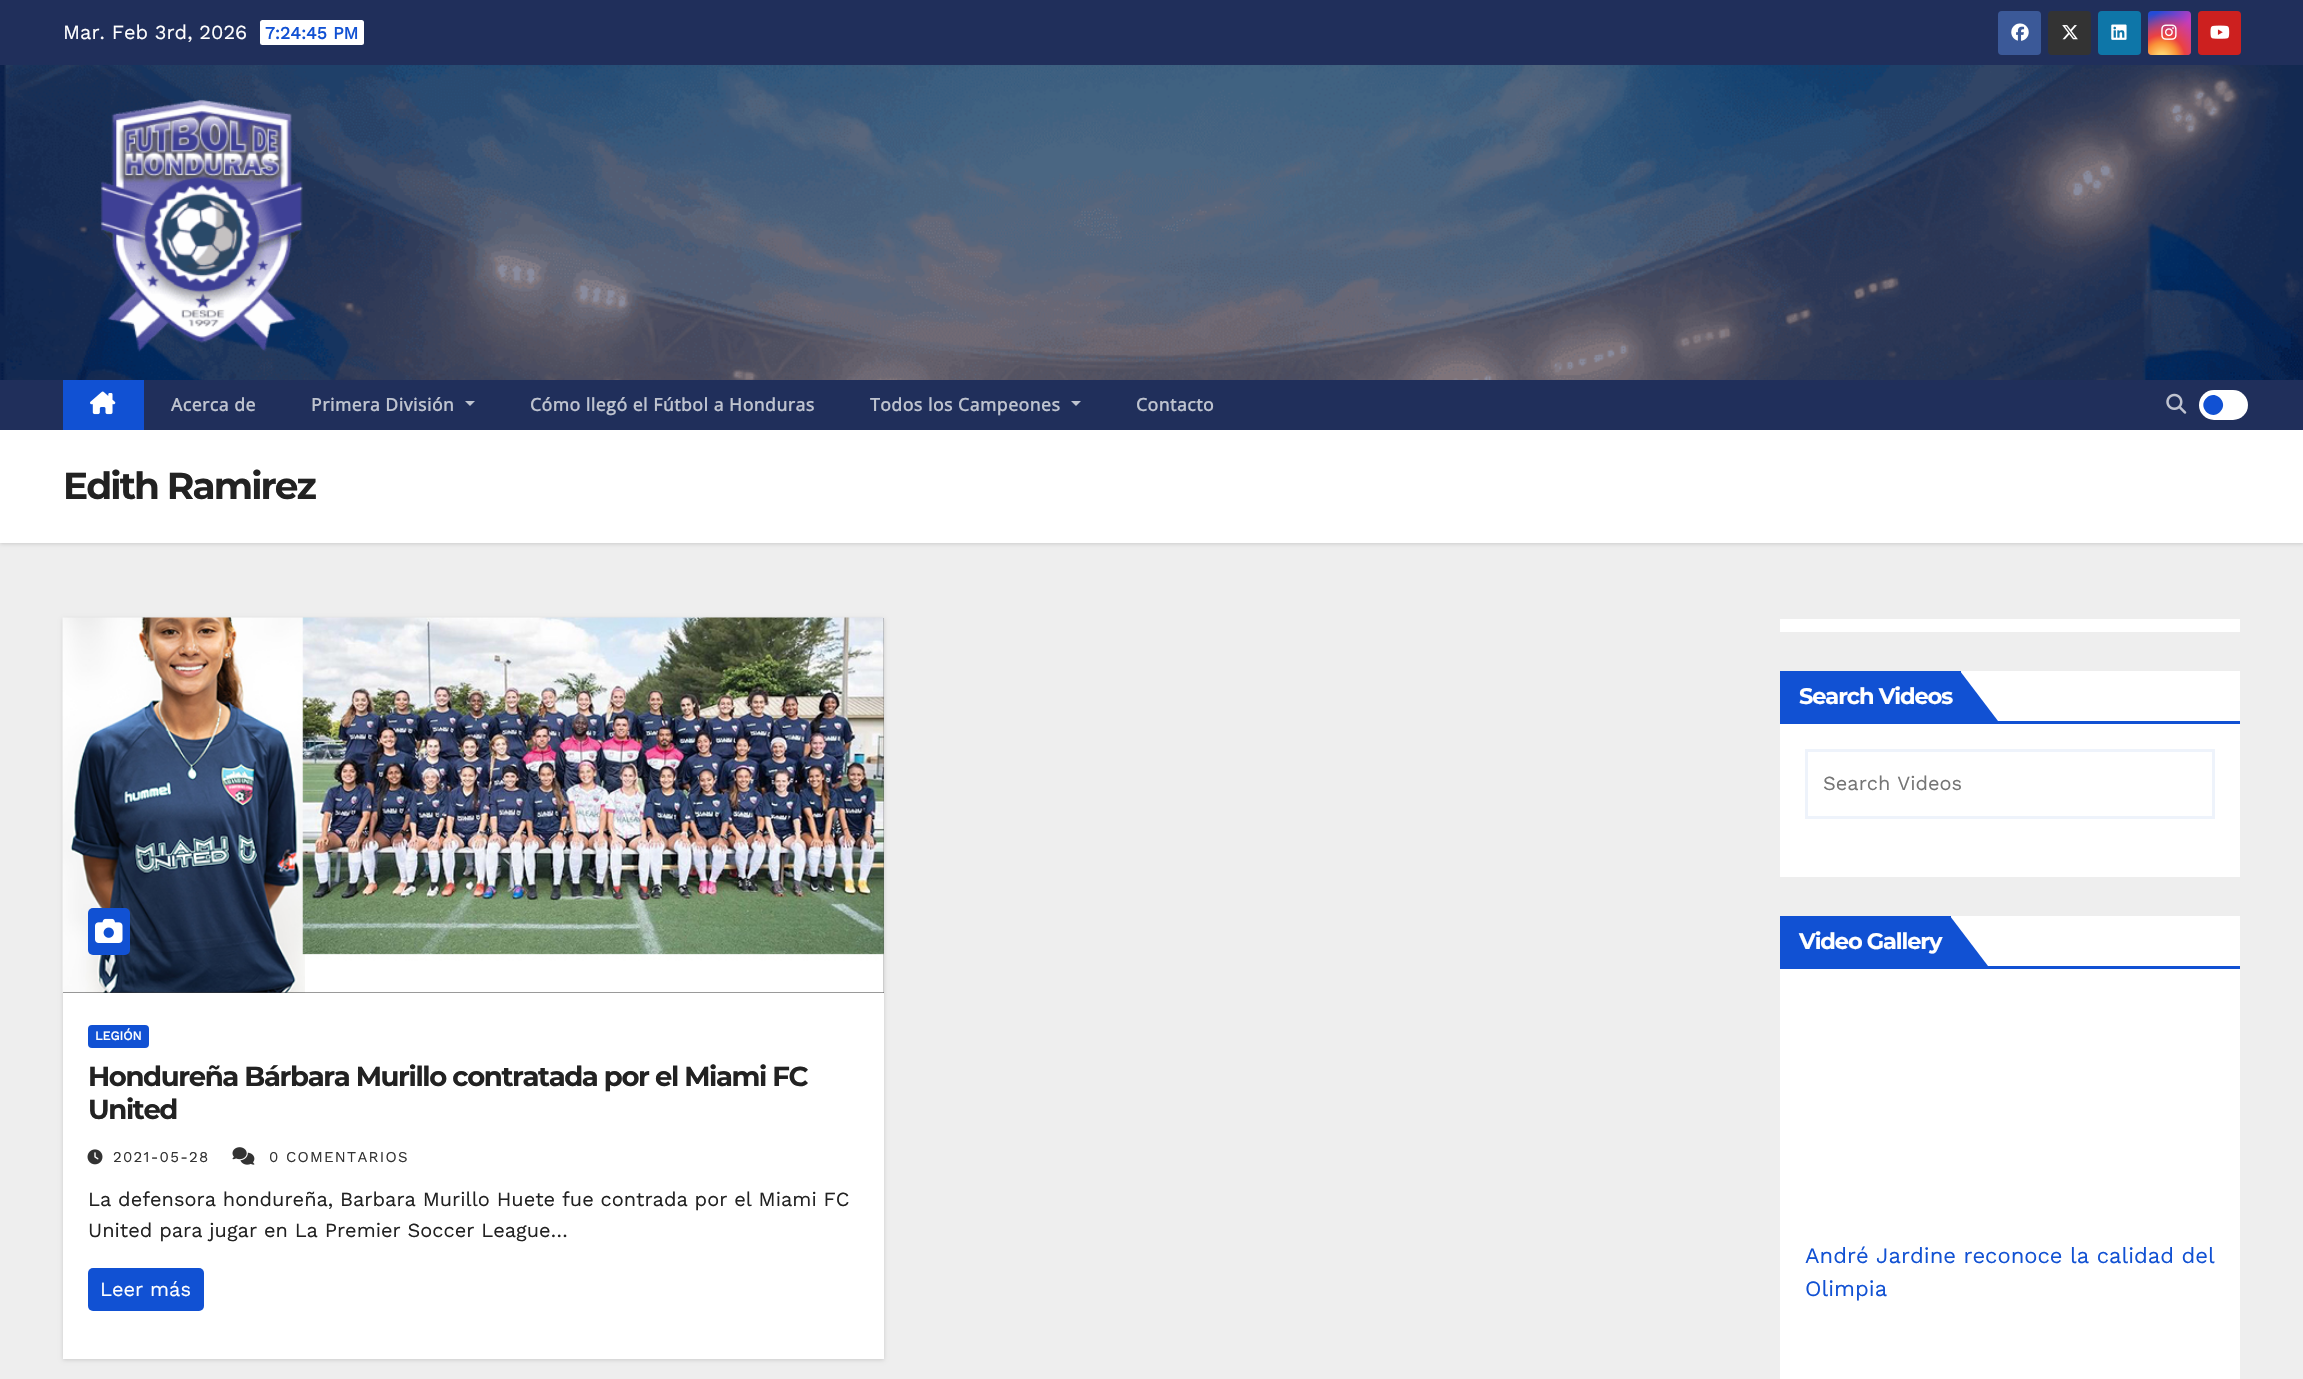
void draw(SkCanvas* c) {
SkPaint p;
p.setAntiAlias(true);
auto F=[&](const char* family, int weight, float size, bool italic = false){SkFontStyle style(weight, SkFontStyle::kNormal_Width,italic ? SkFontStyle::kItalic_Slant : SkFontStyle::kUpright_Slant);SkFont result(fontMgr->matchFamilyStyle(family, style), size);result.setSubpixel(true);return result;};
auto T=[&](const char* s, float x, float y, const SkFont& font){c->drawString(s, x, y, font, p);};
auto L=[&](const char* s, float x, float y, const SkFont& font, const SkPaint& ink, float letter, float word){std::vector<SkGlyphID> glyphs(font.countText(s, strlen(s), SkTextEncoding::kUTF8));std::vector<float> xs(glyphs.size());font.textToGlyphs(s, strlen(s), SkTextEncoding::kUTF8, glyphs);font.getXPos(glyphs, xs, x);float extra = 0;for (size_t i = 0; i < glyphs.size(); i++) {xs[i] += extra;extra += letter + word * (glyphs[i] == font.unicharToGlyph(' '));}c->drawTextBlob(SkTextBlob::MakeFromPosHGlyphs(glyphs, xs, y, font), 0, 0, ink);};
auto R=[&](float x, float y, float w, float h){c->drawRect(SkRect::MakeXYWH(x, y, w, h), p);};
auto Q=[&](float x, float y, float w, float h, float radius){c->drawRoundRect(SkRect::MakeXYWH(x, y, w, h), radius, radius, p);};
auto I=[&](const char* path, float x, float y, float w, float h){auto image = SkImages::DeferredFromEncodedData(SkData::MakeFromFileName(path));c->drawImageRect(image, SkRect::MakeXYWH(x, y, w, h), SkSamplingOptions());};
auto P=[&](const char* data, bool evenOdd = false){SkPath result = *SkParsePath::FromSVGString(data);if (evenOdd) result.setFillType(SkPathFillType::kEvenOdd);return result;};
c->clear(0xffeeeeee);
p.setColor(0xff202f5b);
R(0,0,2303,65);
auto f1 = F("Work Sans",400,20);
p.setColor(0xffffffff);
T("Mar. Feb 3rd, 2026",63,39,f1);
Q(260,20,104,25,2.5);
auto f2 = F("Work Sans",700,17.5);
p.setColor(0xff1151d3);
T("7:24:45 PM",265,39,f2);
p.setColor(0xff3b5998);
Q(1998,11,43,44,4);
I("1.png",2011,23,18,18);
p.setColor(0xff333333);
Q(2048,11,43,44,4);
I("2.png",2062,25,16,15);
p.setColor(0xff0e76a8);
Q(2098,11,43,44,4);
I("3.png",2111,24,16,16);
{
const SkColor colors[] = {0xff234bd7,0xffc33cbe};
const float stops[] = {.12,.58};
const SkPoint ends[] = {{2148,11}, {2191,55}};
p.setShader(SkGradientShader::MakeLinear(ends, colors, stops, 2, SkTileMode::kClamp));
p.setAlpha(255);
}
Q(2148,11,43,44,4);
{
const SkColor colors[] = {0xffffe17d,0xffffcd69,0xfffa9137,0xffeb4141,0x00eb4141};
const float stops[] = {0,.1,.28,.42,.82};
p.setShader(SkGradientShader::MakeRadial({2162,58}, 55, colors, stops, 5, SkTileMode::kClamp));
p.setAlpha(255);
}
Q(2148,11,43,44,4);
I("4.png",2161,24,16,16);
p.setShader(nullptr);
p.setColor(0xffcd201f);
Q(2198,11,43,44,4);
I("5.png",2210,25,20,14);
I("6.png",0,65,2303,315);
I("7.png",100,99,203,253);
p.setColor(0x26000000);
p.setMaskFilter(SkMaskFilter::MakeBlur(kNormal_SkBlurStyle, 2));
c->drawRect(SkRect::MakeXYWH(0,431,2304,113),p);
p.setMaskFilter(nullptr);
p.setColor(0xff202f5b);
R(0,380,2303,50);
p.setColor(0xff1151d3);
R(63,380,81,50);
I("8.png",90,391,26,24);
auto f3 = F("Open Sans",700,17.5);
p.setColor(0xffbec3cf);
L("Acerca de",171,411,f3,p,.6,0);
L("Primera División",311,411,f3,p,.6,0);
c->drawPath(P("M465 401h10l-5 5z"),p);
L("Cómo llegó el Fútbol a Honduras",530,411,f3,p,.6,0);
L("Todos los Campeones",870,411,f3,p,.6,0);
c->drawPath(P("M1071 401h10l-5 5z"),p);
L("Contacto",1136,411,f3,p,.6,0);
I("9.png",2166,393,21,21);
p.setColor(0xffffffff);
Q(2199,390,49,30,15);
p.setColor(0xff1151d3);
c->drawPath(P("M2206.5 398c9-9 23 5 13.5 14c-9 9-23-5-13.5-14z"),p);
p.setColor(0xffffffff);
R(0,430,2303,113);
auto f4 = F("Montserrat",700,37.5);
p.setColor(0xff222222);
L("Edith Ramirez",63,499,f4,p,-1.9,0);
p.setColor(0x26000000);
p.setMaskFilter(SkMaskFilter::MakeBlur(kNormal_SkBlurStyle, 2));
c->drawRect(SkRect::MakeXYWH(63,619,821,741),p);
p.setMaskFilter(nullptr);
p.setColor(0xffffffff);
R(63,993,821,366);
p.setColor(0xff333333);
R(63,618,821,375);
I("10.png",62,617,822,376);
p.setColor(0xff1151d3);
Q(88,908,42,47,5);
I("11.png",95,918,28,25);
Q(88,1025,61,23,4);
auto f5 = F("Work Sans",700,12.5);
p.setColor(0xffffffff);
T("LEGIÓN",95,1040,f5);
auto f6 = F("Montserrat",700,27.5);
p.setColor(0xff222222);
L("Hondureña Bárbara Murillo contratada por el Miami FC",88,1086,f6,p,-1.38,0);
L("United",88,1119,f6,p,-1.38,0);
I("12.png",87,1149,16,16);
auto f7 = F("Work Sans",400,15);
p.setColor(0xff333333);
L("2021-05-28",113,1162,f7,p,1.25,0);
I("13.png",232,1147,23,18);
L("0 COMENTARIOS",269,1162,f7,p,1.25,0);
p.setColor(0xff222222);
T("La defensora hondureña, Barbara Murillo Huete fue contrada por el Miami FC",88,1206,f1);
T("United para jugar en La Premier Soccer League…",88,1237,f1);
p.setColor(0xff1151d3);
Q(88,1268,116,43,5);
p.setColor(0xffffffff);
T("Leer más",100,1296,f1);
R(1780,619,460,13);
R(1780,671,460,206);
p.setColor(0xff1151d3);
R(1780,721,460,3);
R(1780,671,181,50);
auto f8 = F("Montserrat",700,22.5);
p.setColor(0xffffffff);
L("Search Videos",1799,704,f8,p,-1.1,0);
p.setColor(0xff1151d3);
c->drawPath(P("M1960 721v-50l38 50z"),p);
p.setStroke(true);
p.setStrokeWidth(3);
p.setColor(0xffeef3fb);
c->drawRect(SkRect::MakeXYWH(1806.5,750.5,407,67),p);
p.setStroke(false);
p.setColor(0xff757575);
T("Search Videos",1823,790,f1);
p.setColor(0xffffffff);
R(1780,916,460,463);
p.setColor(0xff1151d3);
R(1780,966,460,3);
R(1780,916,171,50);
p.setColor(0xffffffff);
L("Video Gallery",1799,949,f8,p,-1.1,0);
p.setColor(0xff1151d3);
c->drawPath(P("M1950 966v-50l38 50z"),p);
auto f9 = F("Work Sans",400,22);
T("André Jardine reconoce la calidad del",1805,1263,f9);
T("Olimpia",1805,1296,f9);
}
